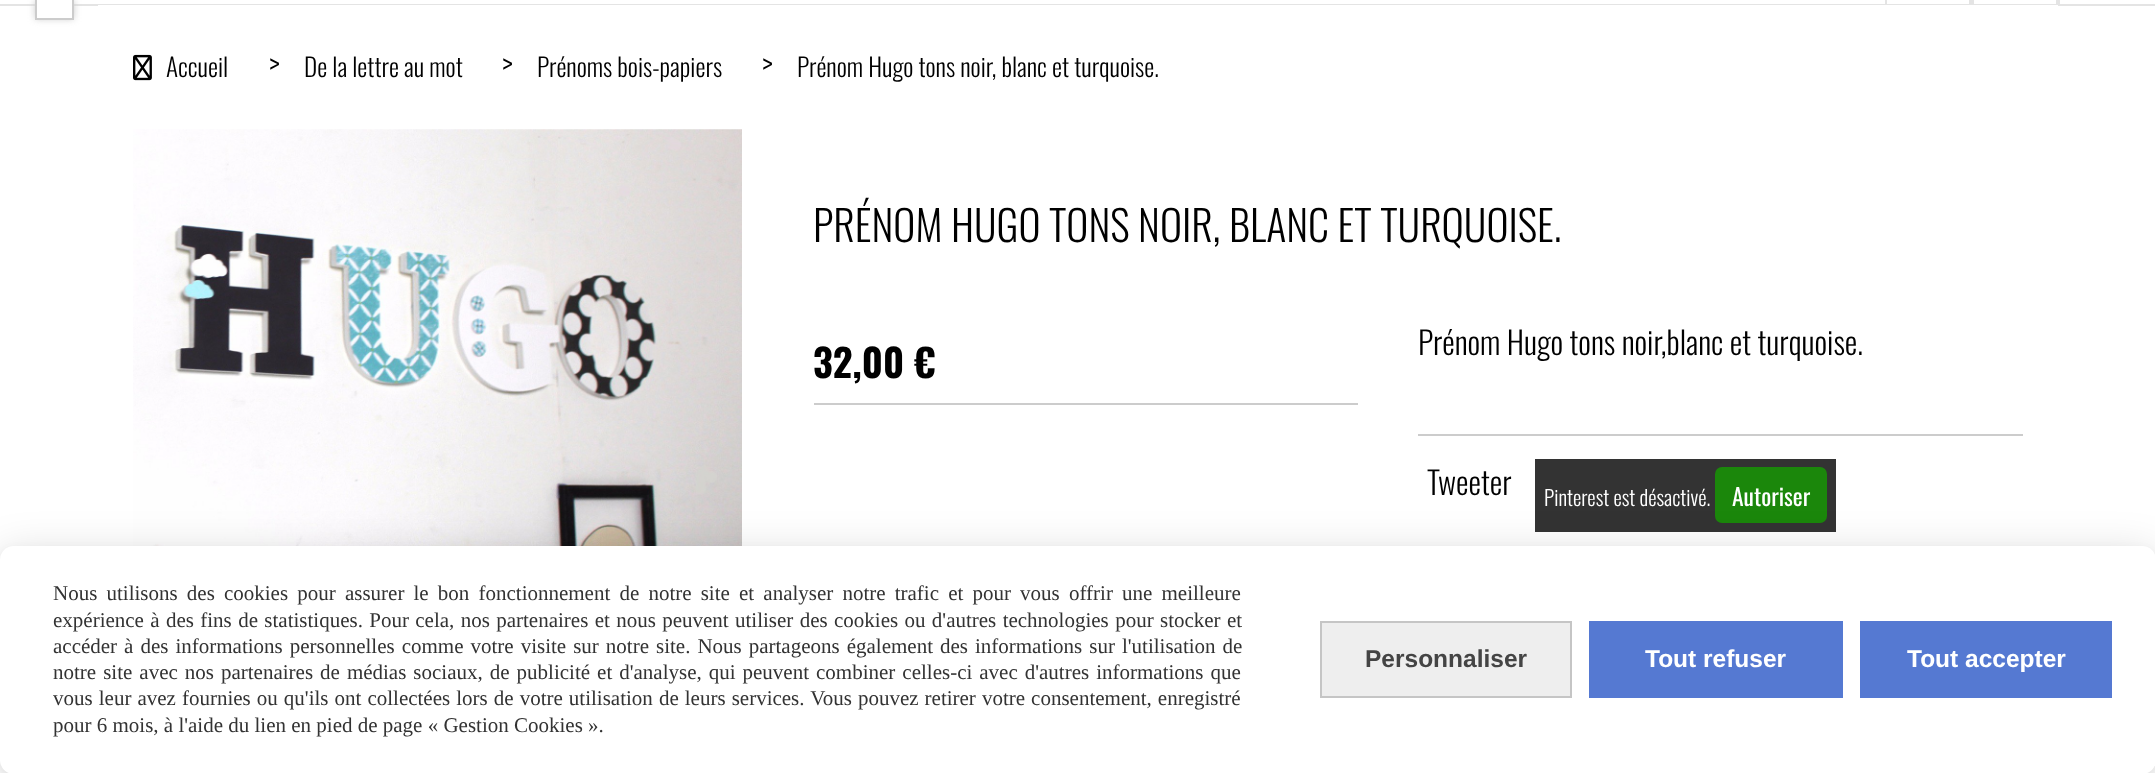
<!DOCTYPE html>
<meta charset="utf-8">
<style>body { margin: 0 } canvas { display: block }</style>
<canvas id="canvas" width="2155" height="773"></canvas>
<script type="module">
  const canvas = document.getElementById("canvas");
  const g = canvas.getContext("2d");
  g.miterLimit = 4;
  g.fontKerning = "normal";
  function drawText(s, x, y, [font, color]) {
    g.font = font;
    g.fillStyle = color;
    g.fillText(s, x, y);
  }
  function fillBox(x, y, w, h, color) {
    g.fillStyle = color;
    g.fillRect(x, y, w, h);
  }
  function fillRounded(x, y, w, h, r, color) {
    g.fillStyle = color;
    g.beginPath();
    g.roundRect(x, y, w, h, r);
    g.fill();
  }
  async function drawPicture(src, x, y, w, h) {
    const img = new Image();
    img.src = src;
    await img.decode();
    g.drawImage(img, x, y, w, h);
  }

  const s1 = ["300 25.25px Oswald", "#000000"];
  const s2 = ["300 31.5px Oswald", "#000000"];
  const s3 = ["300 42px Oswald", "#000000"];
  const s4 = ["bold 38.5px Oswald", "#000000"];
  const s5 = ["300 21px Oswald", "#FFFFFF"];
  const s6 = ["23.5px Oswald", "#FFFFFF"];
  const s7 = ["21px Liberation Serif", "#333333"];
  const s8 = ["bold 24.5px Liberation Sans", "#444444"];
  const s9 = ["bold 24.5px Liberation Sans", "#FFFFFF"];

  fillBox(0, 0, 2155, 773, "#FFFFFF");
  fillBox(0, 4, 2155, 2, "#E4E4E4");
  g.fillStyle = "#CCCCCC";
  g.filter = "blur(3.5px)";
  g.beginPath();
  g.rect(35, 0, 39, 19);
  g.fill();
  g.filter = "none";
  fillBox(37, 0, 35, 18, "#FFFFFF");
  fillBox(72, 0, 2, 19, "#CCCCCC");
  fillBox(35, 18, 39, 2, "#CCCCCC");
  fillBox(35, 0, 2, 19, "#CCCCCC");
  fillBox(1969, 0, 5, 4, "#E4E4E4");
  fillBox(1885, 0, 2, 4, "#E4E4E4");
  fillBox(2056, 0, 4, 4, "#E4E4E4");
  fillBox(98, 5, 1960, 1, "#FFFFFF");
  await drawPicture("pic1.png", 133, 54, 19, 27);
  drawText("Accueil", 166, 77, s1);
  drawText(">", 269, 77, s2);
  drawText("De la lettre au mot", 304, 77, s1);
  drawText(">", 502, 77, s2);
  drawText("Prénoms bois-papiers", 537, 77, s1);
  drawText(">", 762, 77, s2);
  drawText("Prénom Hugo tons noir, blanc et turquoise.", 797, 77, s1);
  await drawPicture("pic2.png", 133, 129, 609, 417);
  drawText("PRÉNOM HUGO TONS NOIR, BLANC ET TURQUOISE.", 813, 242, s3);
  fillBox(814, 403, 544, 2, "#CCCCCC");
  drawText("32,00 €", 813, 378, s4);
  drawText("Prénom Hugo tons noir,blanc et turquoise.", 1418, 355, s2);
  fillBox(1418, 434, 605, 2, "#CCCCCC");
  drawText("Tweeter", 1427, 495, s2);
  fillBox(1535, 459, 301, 73, "#333333");
  drawText("Pinterest est désactivé.", 1544, 506, s5);
  fillRounded(1715, 467, 112, 56, 7, "#1B870B");
  drawText("Autoriser", 1732, 506, s6);
  g.fillStyle = "rgba(0, 0, 0, 0.05)";
  g.filter = "blur(5px)";
  g.beginPath();
  g.roundRect(0, 550, 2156, 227, 14);
  g.fill();
  g.filter = "none";
  g.fillStyle = "rgba(0, 0, 0, 0.15)";
  g.filter = "blur(21px)";
  g.beginPath();
  g.roundRect(0, 553, 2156, 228, 14);
  g.fill();
  g.filter = "none";
  fillRounded(0, 546, 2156, 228, 14, "#FFFFFF");
  g.wordSpacing = "3.9px";
  drawText("Nous utilisons des cookies pour assurer le bon fonctionnement de notre site et analyser notre trafic et pour vous offrir une meilleure", 53, 600, s7);
  g.wordSpacing = "1.1px";
  drawText("expérience à des fins de statistiques. Pour cela, nos partenaires et nous peuvent utiliser des cookies ou d'autres technologies pour stocker et", 53, 627, s7);
  g.wordSpacing = "1.75px";
  drawText("accéder à des informations personnelles comme votre visite sur notre site. Nous partageons également des informations sur l'utilisation de", 53, 653, s7);
  drawText("notre site avec nos partenaires de médias sociaux, de publicité et d'analyse, qui peuvent combiner celles-ci avec d'autres informations que", 53, 679, s7);
  g.wordSpacing = "0.8px";
  drawText("vous leur avez fournies ou qu'ils ont collectées lors de votre utilisation de leurs services. Vous pouvez retirer votre consentement, enregistré", 53, 705, s7);
  g.wordSpacing = "0px";
  drawText("pour 6 mois, à l'aide du lien en pied de page « Gestion Cookies ».", 53, 732, s7);
  g.fillStyle = "#EEEEEE";
  g.beginPath();
  g.rect(1321, 622, 250, 75);
  g.fill();
  g.strokeStyle = "#C5C5C5";
  g.lineWidth = 2;
  g.stroke();
  drawText("Personnaliser", 1365, 667, s8);
  fillBox(1589, 621, 254, 77, "#5579D2");
  drawText("Tout refuser", 1645, 667, s9);
  fillBox(1860, 621, 252, 77, "#5579D2");
  drawText("Tout accepter", 1907, 667, s9);
</script>
